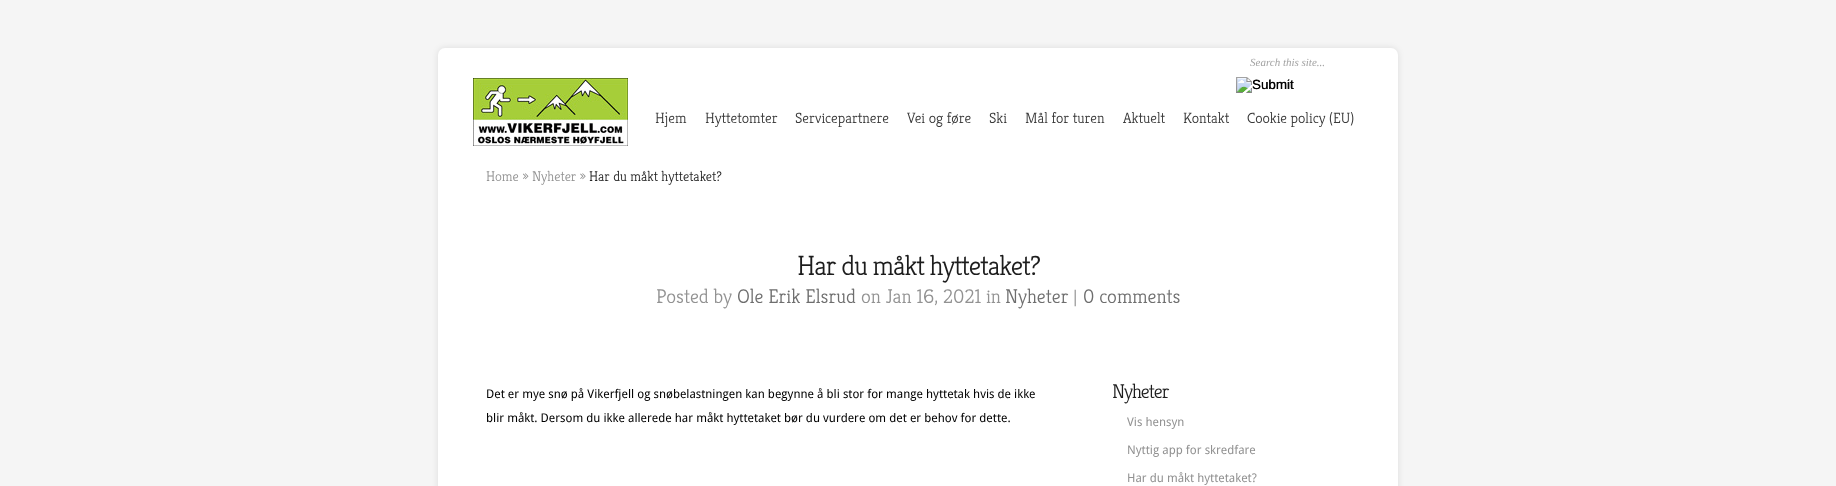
<!DOCTYPE html>
<meta charset="utf-8">
<style>body { margin: 0 } canvas { display: block }</style>
<canvas id="canvas" width="1836" height="486"></canvas>
<script type="module">
  const canvas = document.getElementById("canvas");
  const g = canvas.getContext("2d");
  g.miterLimit = 4;
  g.fontKerning = "normal";
  function drawText(s, x, y, [font, color]) {
    g.font = font;
    g.fillStyle = color;
    g.fillText(s, x, y);
  }
  function fillBox(x, y, w, h, color) {
    g.fillStyle = color;
    g.fillRect(x, y, w, h);
  }
  function fillRounded(x, y, w, h, r, color) {
    g.fillStyle = color;
    g.beginPath();
    g.roundRect(x, y, w, h, r);
    g.fill();
  }
  async function drawPicture(src, x, y, w, h) {
    const img = new Image();
    img.src = src;
    await img.decode();
    g.drawImage(img, x, y, w, h);
  }

  const s1 = ["italic 11px Liberation Serif", "#A3A3A3"];
  const s2 = ["13.5px Liberation Sans", "#000000"];
  const s3 = ["300 15px Kreon", "#393939"];
  const s4 = ["300 14px Kreon", "#929292"];
  const s5 = ["300 14px Kreon", "#1D1D1D"];
  const s6 = ["300 28px Kreon", "#1D1D1D"];
  const s7 = ["300 20px Kreon", "#929292"];
  const s8 = ["300 20px Kreon", "#6E6E6E"];
  const s9 = ["12px Droid Sans", "#000000"];
  const s10 = ["300 20px Kreon", "#1D1D1D"];
  const s11 = ["12px Droid Sans", "#929292"];

  fillBox(0, 0, 1836, 486, "#F5F5F5");
  g.fillStyle = "rgba(0, 0, 0, 0.1)";
  g.filter = "blur(3px)";
  g.beginPath();
  g.roundRect(438, 48, 960, 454, 7);
  g.fill();
  g.filter = "none";
  fillRounded(438, 48, 960, 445, 7, "#FFFFFF");
  drawText("Search this site...", 1250, 66, s1);
  await drawPicture("pic1.png", 1236, 77, 57, 16);
  drawText("Submit", 1252, 89, s2);
  await drawPicture("pic2.png", 473, 78, 155, 68);
  drawText("Hjem", 655, 123, s3);
  drawText("Hyttetomter", 705, 123, s3);
  drawText("Servicepartnere", 795, 123, s3);
  drawText("Vei og føre", 907, 123, s3);
  drawText("Ski", 989, 123, s3);
  drawText("Mål for turen", 1025, 123, s3);
  drawText("Aktuelt", 1123, 123, s3);
  drawText("Kontakt", 1183, 123, s3);
  drawText("Cookie policy (EU)", 1247, 123, s3);
  drawText("Home » Nyheter »", 486, 181, s4);
  drawText("Har du måkt hyttetaket?", 589, 181, s5);
  g.letterSpacing = "-1px";
  drawText("Har du måkt hyttetaket?", 797, 275, s6);
  g.letterSpacing = "0px";
  drawText("Posted by", 656, 303, s7);
  drawText("Ole Erik Elsrud", 737, 303, s8);
  drawText("on Jan 16, 2021 in", 861, 303, s7);
  drawText("Nyheter", 1005, 303, s8);
  drawText("|", 1073, 303, s7);
  drawText("0 comments", 1083, 303, s8);
  drawText("Det er mye snø på Vikerfjell og snøbelastningen kan begynne å bli stor for mange hyttetak hvis de ikke", 486, 398, s9);
  drawText("blir måkt. Dersom du ikke allerede har måkt hyttetaket bør du vurdere om det er behov for dette.", 486, 422, s9);
  g.letterSpacing = "-1px";
  drawText("Nyheter", 1112, 398, s10);
  g.letterSpacing = "0px";
  drawText("Vis hensyn", 1127, 426, s11);
  drawText("Nyttig app for skredfare", 1127, 454, s11);
  drawText("Har du måkt hyttetaket?", 1127, 482, s11);
</script>
